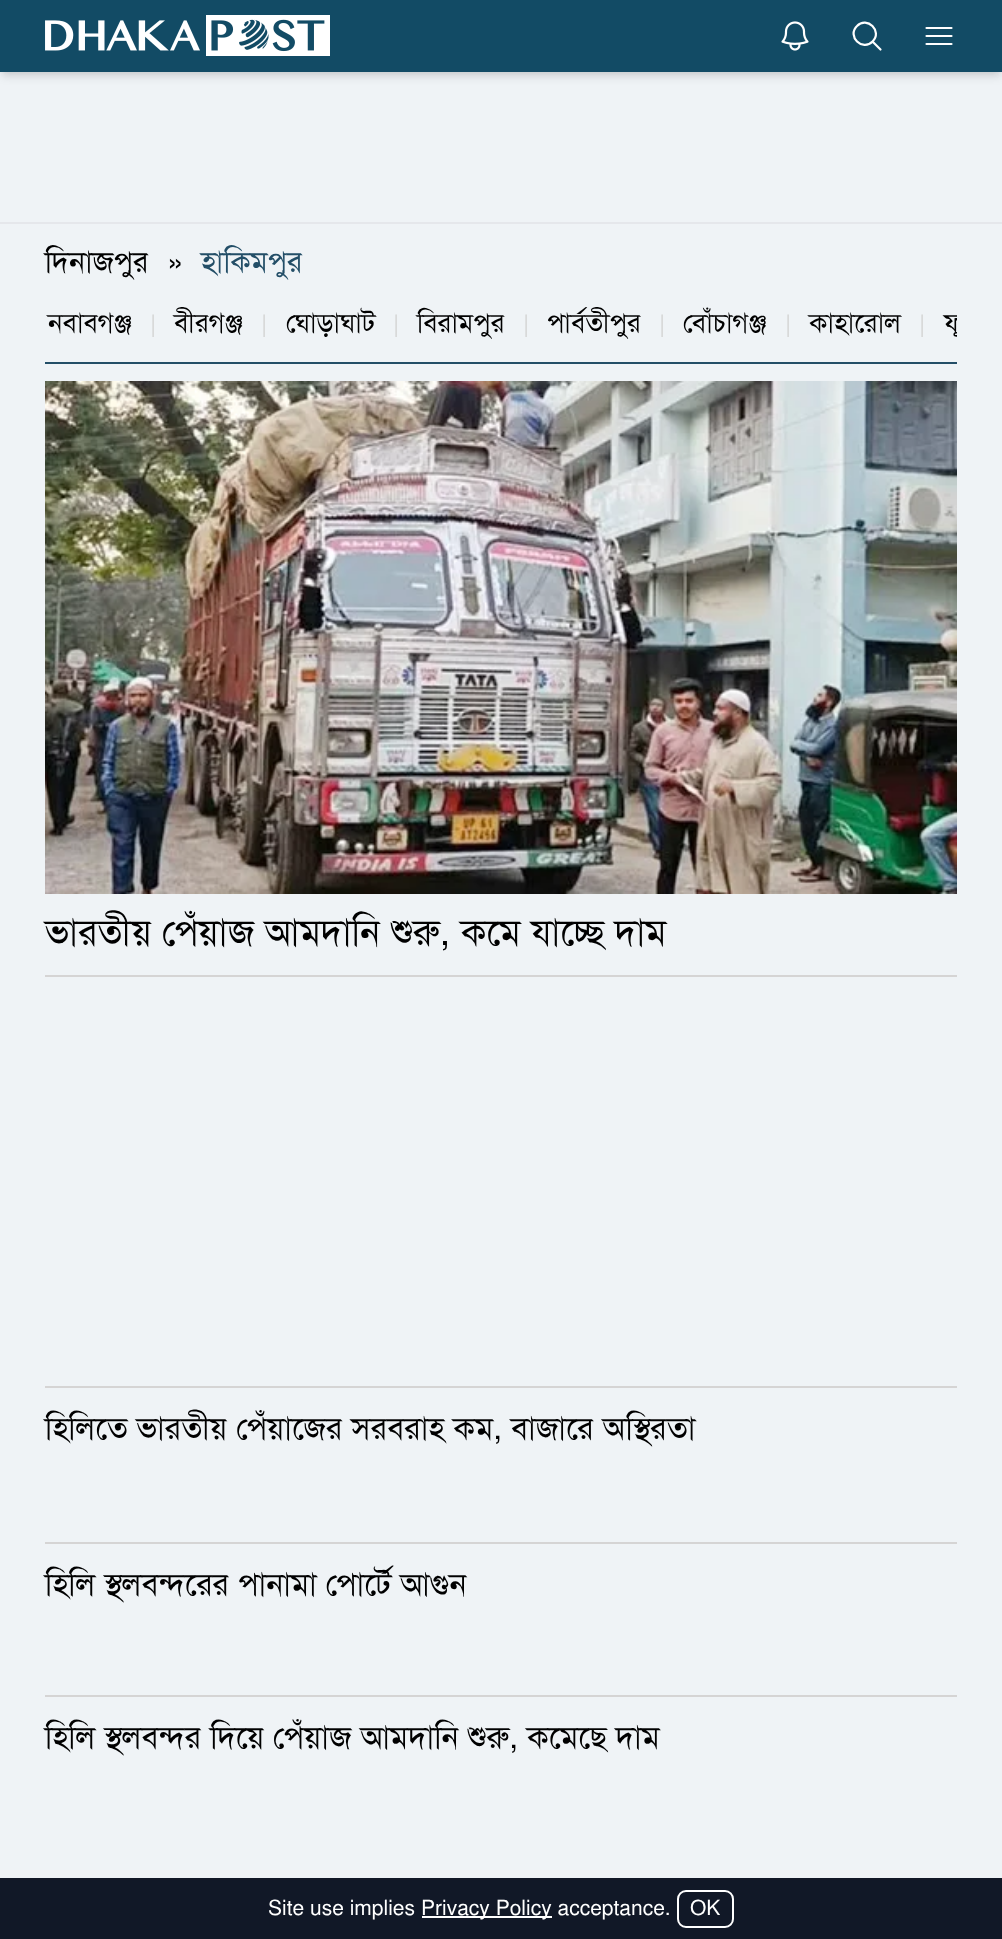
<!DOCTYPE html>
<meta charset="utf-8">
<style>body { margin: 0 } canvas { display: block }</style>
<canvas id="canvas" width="1002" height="1939"></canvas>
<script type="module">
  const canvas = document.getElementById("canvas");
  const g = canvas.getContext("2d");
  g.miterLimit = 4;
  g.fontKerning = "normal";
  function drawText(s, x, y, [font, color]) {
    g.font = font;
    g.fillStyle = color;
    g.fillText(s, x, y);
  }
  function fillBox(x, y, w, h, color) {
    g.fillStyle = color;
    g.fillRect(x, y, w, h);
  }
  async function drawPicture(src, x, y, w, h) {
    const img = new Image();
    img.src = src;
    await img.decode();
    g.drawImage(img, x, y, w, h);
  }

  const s1 = ["30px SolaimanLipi", "#000000"];
  const s2 = ["30px SolaimanLipi", "#234E67"];
  const s3 = ["27px SolaimanLipi", "#000000"];
  const s4 = ["24px SolaimanLipi", "#D5D4D4"];
  const s5 = ["37.5px SolaimanLipi", "#000000"];
  const s6 = ["31.9px SolaimanLipi", "#000000"];
  const s7 = ["21px SolaimanLipi", "#FFFFFF"];

  fillBox(0, 0, 1002, 1939, "#EFF3F6");
  g.fillStyle = "rgba(0, 0, 0, 0.1)";
  g.filter = "blur(3px)";
  g.beginPath();
  g.rect(3, 6, 996, 66);
  g.fill();
  g.filter = "none";
  g.filter = "blur(4.5px)";
  g.beginPath();
  g.rect(2, 8, 999, 69);
  g.fill();
  g.filter = "none";
  fillBox(0, 0, 1002, 72, "#124B65");
  await drawPicture("pic1.png", 45, 15, 285, 41);
  await drawPicture("pic2.png", 781, 21, 28, 30);
  g.beginPath();
  g.moveTo(880.5, 49.5);
  g.lineTo(872.5, 41.5);
  g.moveTo(872.5, 41.5);
  g.bezierCurveTo(883, 31.5, 867, 15.5, 857, 26);
  g.bezierCurveTo(846.5, 36, 862.5, 52, 872.5, 41.5);
  g.closePath();
  g.strokeStyle = "#FFFFFF";
  g.lineWidth = 2.2;
  g.lineCap = "round";
  g.lineJoin = "round";
  g.stroke();
  g.beginPath();
  g.moveTo(926.5, 28);
  g.lineTo(951.5, 28);
  g.moveTo(926.5, 36);
  g.lineTo(951.5, 36);
  g.moveTo(926.5, 44);
  g.lineTo(951.5, 44);
  g.stroke();
  fillBox(0, 222, 1002, 2, "#E5E7EB");
  fillBox(45, 362, 912, 2, "#234E67");
  drawText("দিনাজপুর", 45, 272, s1);
  drawText("»", 167, 272, s1);
  drawText("হাকিমপুর", 201, 272, s2);
  drawText("নবাবগঞ্জ", 48, 332, s3);
  drawText("|", 150, 332, s4);
  drawText("বীরগঞ্জ", 174, 332, s3);
  drawText("|", 261, 332, s4);
  drawText("ঘোড়াঘাট", 286, 332, s3);
  drawText("|", 393, 332, s4);
  drawText("বিরামপুর", 417, 332, s3);
  drawText("|", 523, 332, s4);
  drawText("পার্বতীপুর", 547, 332, s3);
  drawText("|", 659, 332, s4);
  drawText("বোঁচাগঞ্জ", 683, 332, s3);
  drawText("|", 785, 332, s4);
  drawText("কাহারোল", 809, 332, s3);
  drawText("|", 919, 332, s4);
  g.save();
  g.beginPath();
  g.rect(45, 302, 912, 60);
  g.clip();
  drawText("ফু", 944, 332, s3);
  g.restore();
  await drawPicture("pic3.png", 45, 381, 912, 513);
  drawText("ভারতীয় পেঁয়াজ আমদানি শুরু, কমে যাচ্ছে দাম", 45, 945, s5);
  fillBox(45, 975, 912, 2, "#D5D4D4");
  fillBox(45, 1386, 912, 2, "#D5D4D4");
  drawText("হিলিতে ভারতীয় পেঁয়াজের সরবরাহ কম, বাজারে অস্থিরতা", 45, 1439, s6);
  fillBox(45, 1542, 912, 2, "#D5D4D4");
  drawText("হিলি স্থলবন্দরের পানামা পোর্টে আগুন", 45, 1595, s6);
  fillBox(45, 1695, 912, 2, "#D5D4D4");
  drawText("হিলি স্থলবন্দর দিয়ে পেঁয়াজ আমদানি শুরু, কমেছে দাম", 45, 1748, s6);
  fillBox(0, 1878, 1002, 61, "#111827");
  drawText("Site use implies", 268, 1915, s7);
  fillBox(422, 1916, 130, 2, "#FFFFFF");
  drawText("Privacy Policy acceptance.", 421, 1915, s7);
  g.beginPath();
  g.roundRect(678, 1891, 55, 36, 8);
  g.lineWidth = 2;
  g.lineJoin = "miter";
  g.stroke();
  drawText("OK", 690, 1915, s7);
</script>
